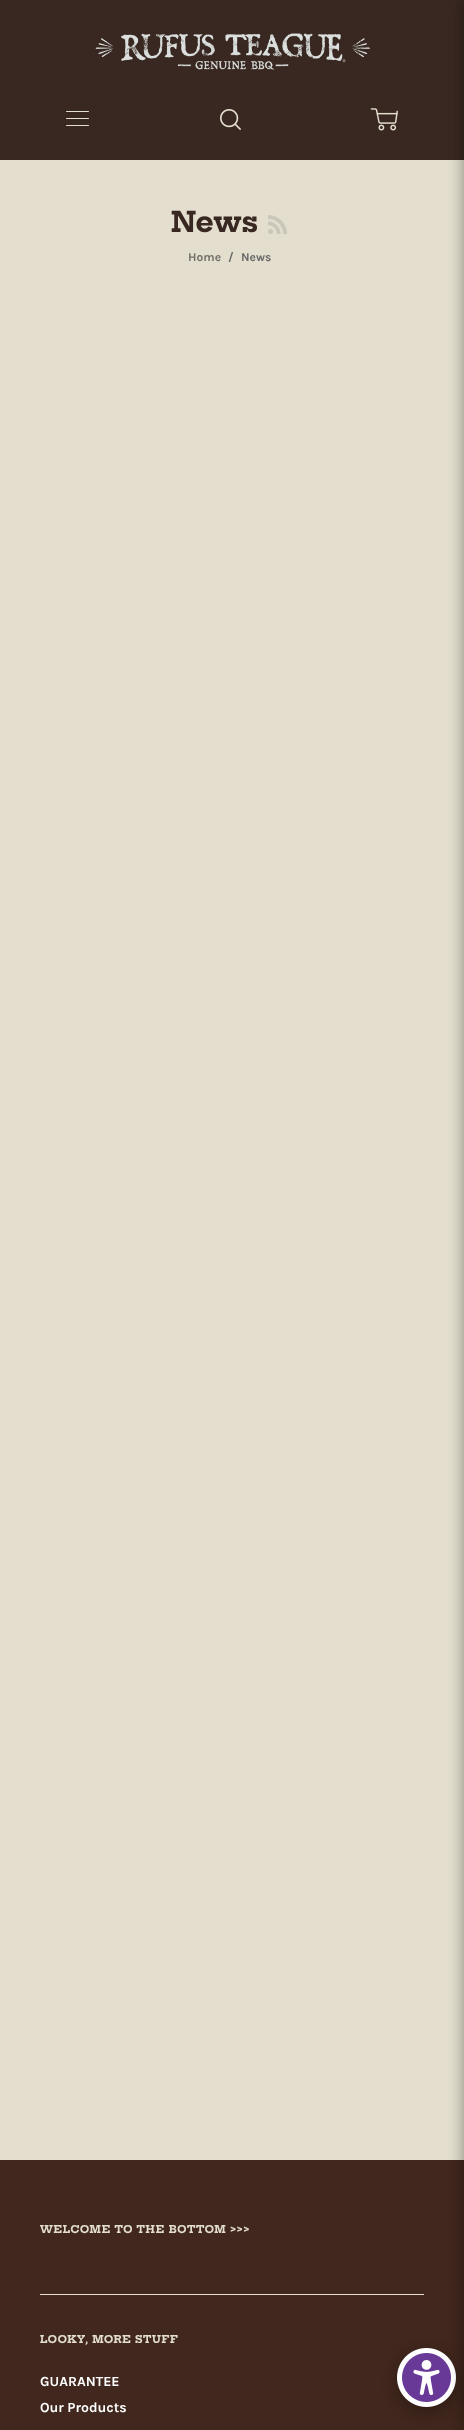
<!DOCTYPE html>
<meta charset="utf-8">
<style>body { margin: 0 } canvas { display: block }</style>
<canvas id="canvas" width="464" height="2430"></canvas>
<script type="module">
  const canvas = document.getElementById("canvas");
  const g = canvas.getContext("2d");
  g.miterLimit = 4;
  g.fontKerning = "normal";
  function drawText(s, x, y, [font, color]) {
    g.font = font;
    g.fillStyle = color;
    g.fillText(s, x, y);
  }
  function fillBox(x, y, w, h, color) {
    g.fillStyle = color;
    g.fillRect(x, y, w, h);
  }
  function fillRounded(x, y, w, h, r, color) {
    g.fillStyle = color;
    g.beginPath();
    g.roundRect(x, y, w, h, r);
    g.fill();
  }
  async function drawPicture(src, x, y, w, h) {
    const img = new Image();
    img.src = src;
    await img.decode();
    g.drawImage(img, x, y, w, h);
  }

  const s1 = ["bold 28px Hepta Slab", "#392821"];
  const s2 = ["bold 12px Karla", "#726F68"];
  const s3 = ["bold 12px Karla", "#696969"];
  const s4 = ["bold 10.5px Hepta Slab", "#E3DECE"];
  const s5 = ["bold 14px Karla", "#FFFFFF"];

  fillBox(0, 0, 464, 2430, "#E3DECE");
  fillBox(0, 0, 464, 80, "#392821");
  await drawPicture("pic1.png", 95, 33, 275, 37);
  g.fillStyle = "rgba(0, 0, 0, 0.3)";
  g.filter = "blur(0.5px)";
  g.beginPath();
  g.rect(1, 82, 462, 78);
  g.fill();
  g.filter = "none";
  fillBox(0, 80, 464, 80, "#392821");
  fillRounded(66, 111, 23, 1, 0.5, "#E3DECE");
  fillRounded(66, 118, 23, 1, 0.5, "#E3DECE");
  fillRounded(66, 125, 23, 1, 0.5, "#E3DECE");
  await drawPicture("pic2.png", 220, 109, 21, 21);
  await drawPicture("pic3.png", 370, 108, 28, 23);
  drawText("News", 171, 232, s1);
  await drawPicture("pic4.png", 268, 215, 19, 19);
  drawText("Home", 188, 261, s2);
  drawText("/", 228, 261, s3);
  drawText("News", 241, 261, s3);
  fillBox(0, 2160, 464, 270, "#41271D");
  g.letterSpacing = "0.65px";
  drawText("WELCOME TO THE BOTTOM >>>", 40, 2233, s4);
  fillBox(40, 2294, 384, 1, "#E3DECE");
  drawText("LOOKY, MORE STUFF", 40, 2343, s4);
  g.letterSpacing = "0px";
  drawText("GUARANTEE", 40, 2386, s5);
  drawText("Our Products", 40, 2412, s5);
  g.fillStyle = "rgba(0, 0, 0, 0.3)";
  g.filter = "blur(7.5px)";
  g.beginPath();
  g.roundRect(397, 2353, 59, 59, 29.5);
  g.fill();
  g.filter = "none";
  await drawPicture("pic5.png", 397, 2348, 59, 59);
  g.fillStyle = "rgba(0, 0, 0, 0.4)";
  g.filter = "blur(7.5px)";
  g.beginPath();
  g.roundRect(464, 0, 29, 2430, 6);
  g.fill();
  g.filter = "none";
</script>
